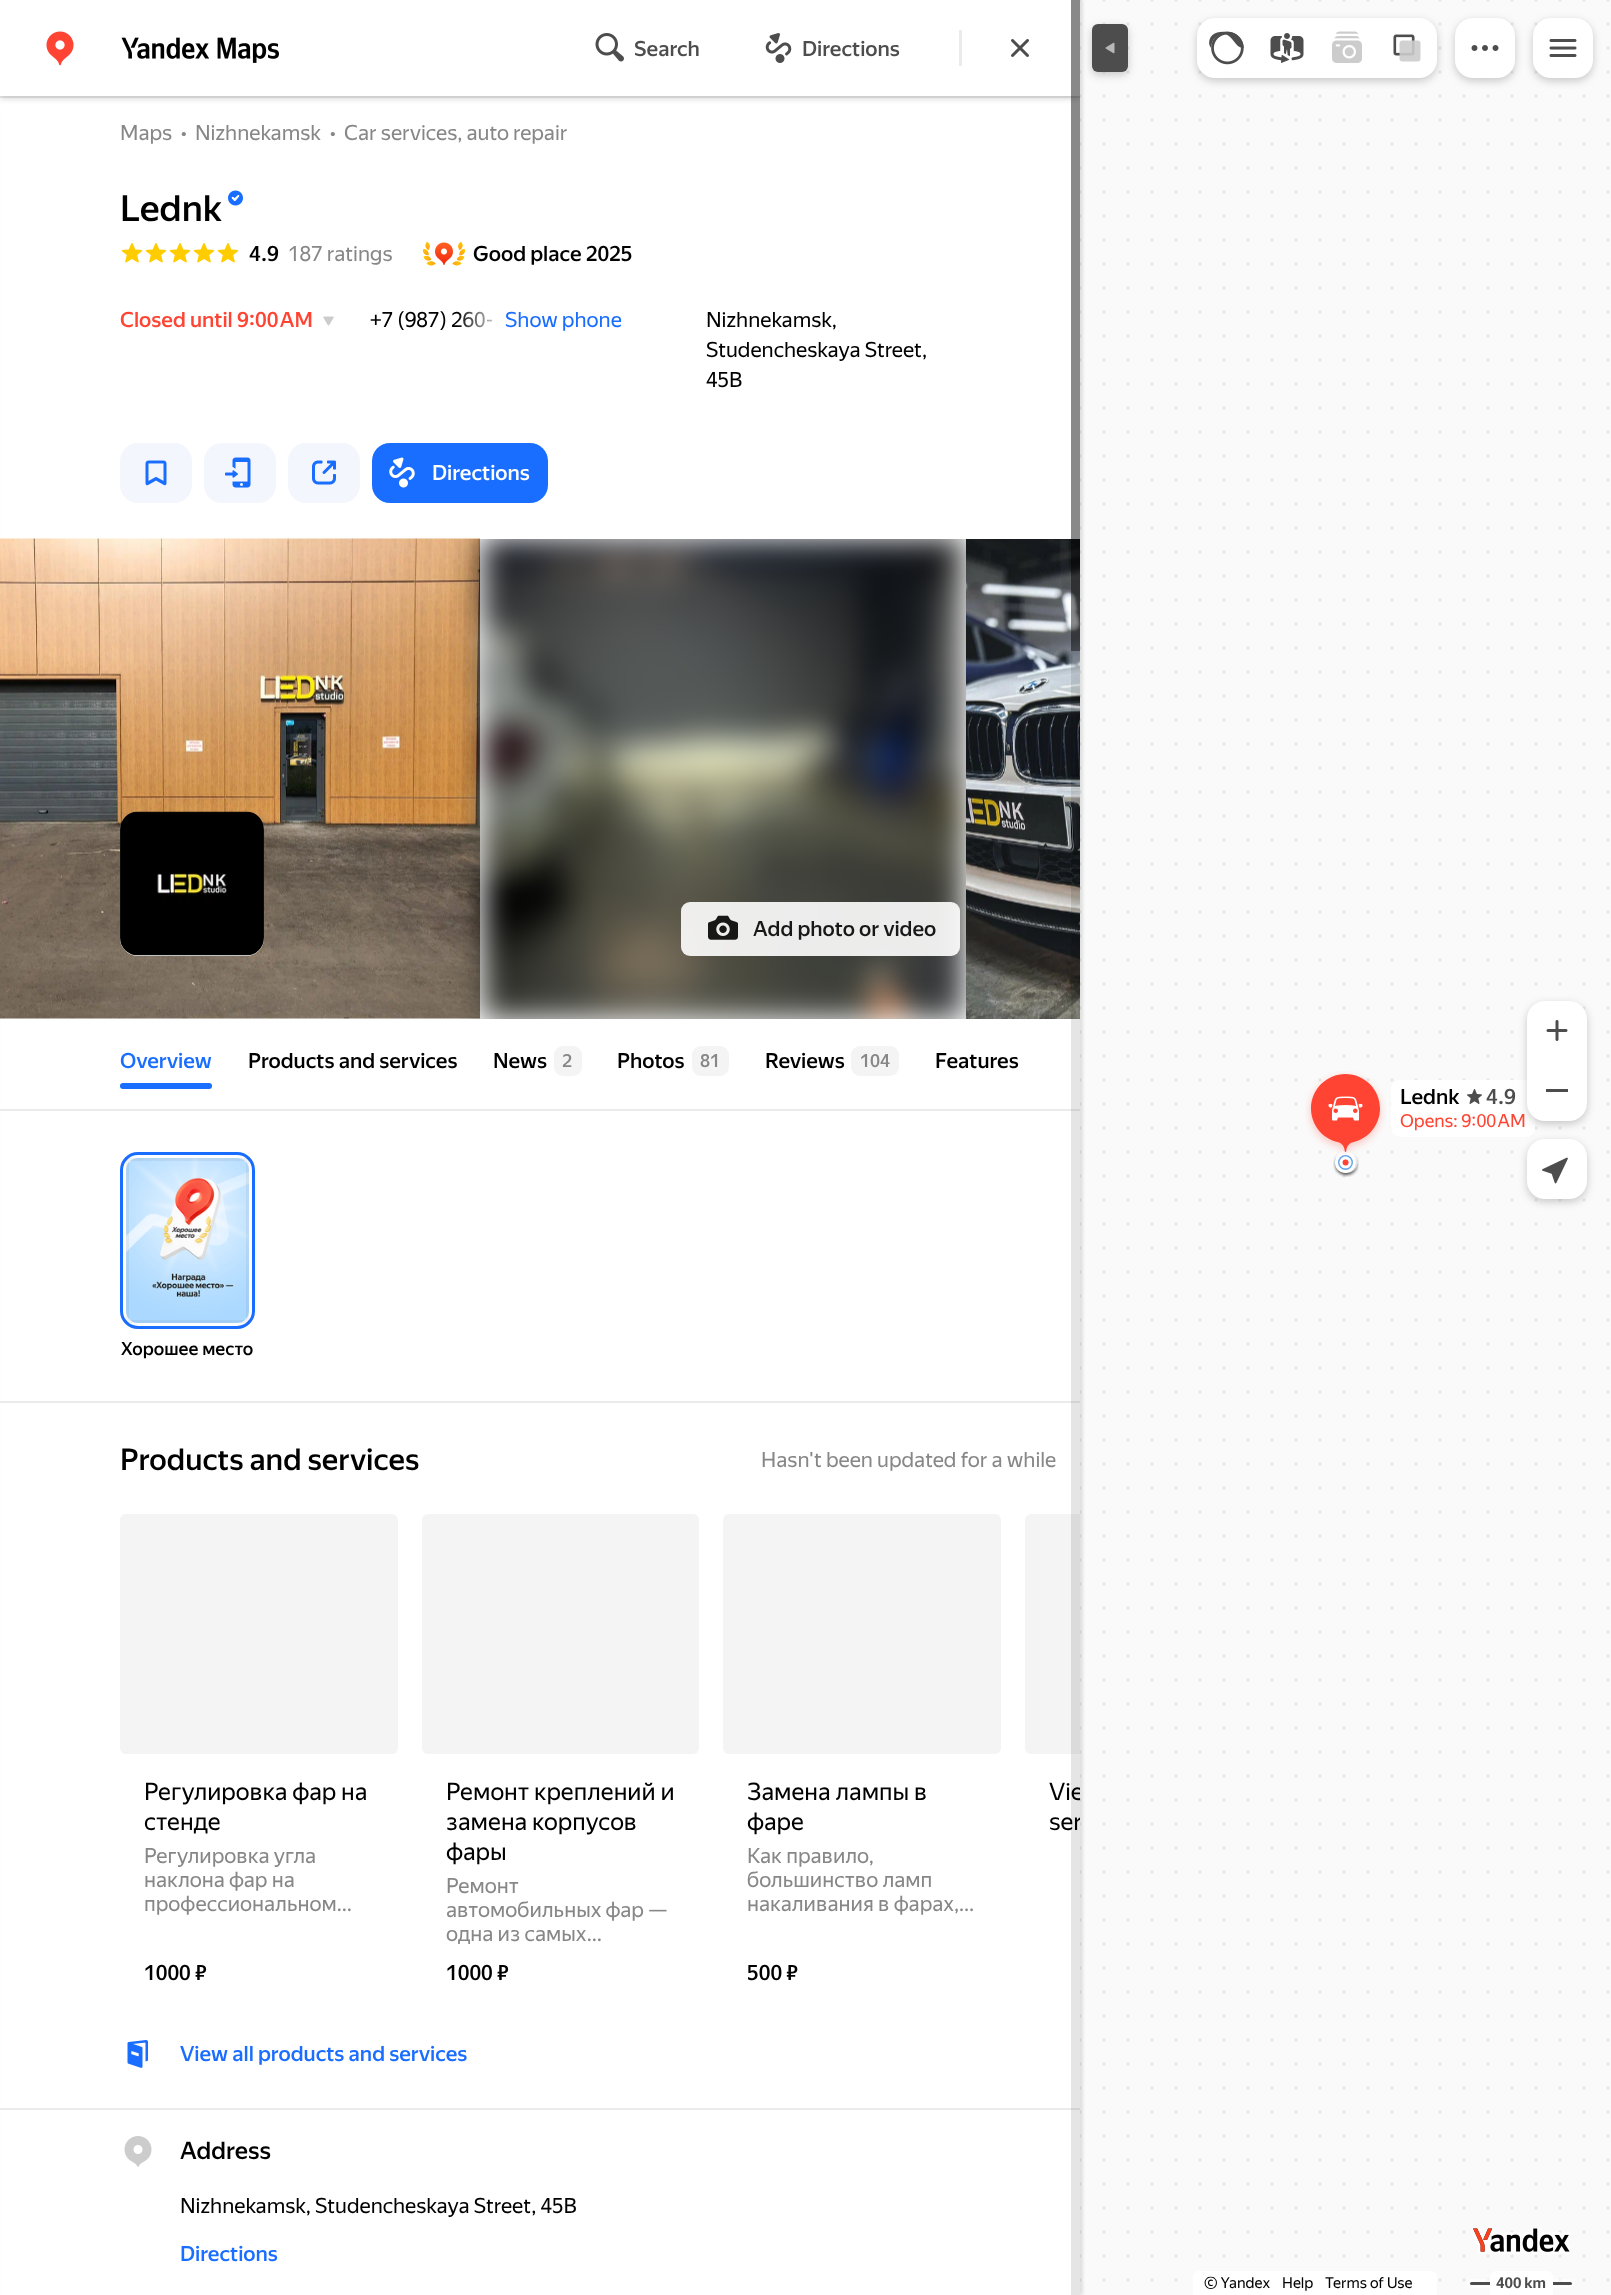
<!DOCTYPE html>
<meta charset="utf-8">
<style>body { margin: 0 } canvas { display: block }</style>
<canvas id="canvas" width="1611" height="2295"></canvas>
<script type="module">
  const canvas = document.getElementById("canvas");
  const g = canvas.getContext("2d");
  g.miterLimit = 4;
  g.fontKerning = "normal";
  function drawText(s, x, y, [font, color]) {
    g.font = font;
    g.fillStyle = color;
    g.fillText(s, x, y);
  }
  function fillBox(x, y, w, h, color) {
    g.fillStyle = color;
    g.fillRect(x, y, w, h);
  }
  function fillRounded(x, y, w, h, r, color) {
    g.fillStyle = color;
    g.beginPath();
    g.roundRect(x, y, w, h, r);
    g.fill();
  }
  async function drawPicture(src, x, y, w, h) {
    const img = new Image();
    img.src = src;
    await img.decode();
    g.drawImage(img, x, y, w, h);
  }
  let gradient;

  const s1 = ["500 21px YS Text", "#4D4D4D"];
  const s2 = ["21px YS Text", "#878787"];
  const s3 = ["500 36px YS Text", "#000000"];
  const s4 = ["500 21px YS Text", "#000000"];
  const s5 = ["500 21px YS Text", "#FF4433"];
  const s6 = ["21px YS Text", "#000000"];
  const s7 = ["21px YS Text", "#196DFF"];
  const s8 = ["500 21px YS Text", "#FFFFFF"];
  const s9 = ["500 21px YS Text", "#181818"];
  const s10 = ["500 21px YS Text", "#196DFF"];
  const s11 = ["500 18px YS Text", "#878787"];
  const s12 = ["500 18px YS Text", "#000000"];
  const s13 = ["500 30px YS Text", "#000000"];
  const s14 = ["24px YS Text", "#000000"];
  const s15 = ["500 24px YS Text", "#000000"];
  const s16 = ["15px YS Text", "#000000"];
  const s17 = ["bold 15px YS Text", "#4D4D4D"];
  const s18 = ["18px YS Text", "#FF4433"];

  fillBox(0, 0, 1611, 2295, "#FFFFFF");
  await drawPicture("pic1.png", 1080, 0, 531, 2295);
  g.fillStyle = "rgba(0, 0, 0, 0.1)";
  g.filter = "blur(1.5px)";
  g.beginPath();
  g.rect(3, 0, 1080, 2295);
  g.fill();
  g.filter = "none";
  fillBox(1, 98, 1079, 2197, "#FFFFFF");
  fillBox(0, 96, 1080, 2, "#EBEBEB");
  g.save();
  g.beginPath();
  g.rect(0, 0, 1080, 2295);
  g.clip();
  g.fillStyle = "rgba(0, 0, 0, 0.2)";
  g.filter = "blur(3px)";
  g.beginPath();
  g.rect(0, 92, 1080, 6);
  g.fill();
  g.filter = "none";
  g.restore();
  g.fillStyle = "rgba(0, 0, 0, 0.2)";
  g.filter = "blur(4.5px)";
  g.beginPath();
  g.roundRect(1092, 27, 36, 48, 6);
  g.fill();
  g.filter = "none";
  fillBox(0, 0, 1080, 96, "#FFFFFF");
  await drawPicture("pic17.png", 964, 539, 116, 480);
  fillBox(0, 1109, 1080, 2, "#EBEBEB");
  fillBox(0, 1401, 1080, 2, "#EBEBEB");
  g.fillStyle = "#F4F4F4";
  g.beginPath();
  g.roundRect(1025, 1514, 55, 240, [6, 0, 0, 6]);
  g.fill();
  fillBox(0, 2108, 1080, 2, "#EBEBEB");
  fillBox(1071, 0, 9, 2295, "rgba(0, 0, 0, 0.1)");
  fillBox(1071, 0, 9, 651, "rgba(0, 0, 0, 0.4)");
  await drawPicture("pic2.png", 46, 31, 28, 35);
  await drawPicture("pic3.png", 121, 37, 158, 26);
  await drawPicture("pic4.png", 595, 33, 29, 29);
  drawText("Search", 634, 56, s1);
  await drawPicture("pic5.png", 765, 33, 27, 30);
  drawText("Directions", 802, 56, s1);
  fillBox(959, 30, 3, 36, "#EBEBEB");
  await drawPicture("pic6.png", 1011, 39, 18, 18);
  drawText("Maps", 120, 140, s2);
  drawText("•", 181, 140, s2);
  drawText("Nizhnekamsk", 195, 140, s2);
  drawText("•", 330, 140, s2);
  drawText("Car services, auto repair", 344, 140, s2);
  drawText("Lednk", 120, 221, s3);
  await drawPicture("pic7.png", 228, 190, 15, 16);
  await drawPicture("pic8.png", 121, 243, 22, 20);
  await drawPicture("pic8.png", 145, 243, 22, 20);
  await drawPicture("pic8.png", 169, 243, 22, 20);
  await drawPicture("pic8.png", 193, 243, 22, 20);
  await drawPicture("pic8.png", 217, 243, 22, 20);
  drawText("4.9", 249, 261, s4);
  drawText("187 ratings", 288, 261, s2);
  await drawPicture("pic9.png", 423, 242, 42, 24);
  drawText("Good place 2025", 473, 261, s4);
  drawText("Closed until 9:00 AM", 120, 327, s5);
  await drawPicture("pic10.png", 323, 316, 11, 10);
  drawText("+7 (987) 260-", 370, 327, s6);
  gradient = g.createLinearGradient(456, 320, 504, 320);
  gradient.addColorStop(0, "rgba(255, 255, 255, 0)");
  gradient.addColorStop(1, "#FFFFFF");
  g.fillStyle = gradient;
  g.fillRect(457, 311, 35, 17);
  drawText("Show phone", 505, 327, s7);
  drawText("Nizhnekamsk,", 706, 327, s6);
  drawText("Studencheskaya Street,", 706, 357, s6);
  drawText("45В", 706, 387, s6);
  fillRounded(120, 443, 72, 60, 18, "#F3F6FC");
  await drawPicture("pic11.png", 145, 460, 22, 26);
  fillRounded(204, 443, 72, 60, 18, "#F3F6FC");
  await drawPicture("pic12.png", 225, 457, 26, 31);
  fillRounded(288, 443, 72, 60, 18, "#F3F6FC");
  await drawPicture("pic13.png", 312, 460, 24, 25);
  fillRounded(372, 443, 176, 60, 18, "#196DFF");
  await drawPicture("pic14.png", 389, 457, 26, 31);
  drawText("Directions", 432, 480, s8);
  await drawPicture("pic15.png", 0, 538, 482, 481);
  await drawPicture("pic16.png", 482, 539, 482, 480);
  fillRounded(120, 812, 144, 144, 18, "#FFFFFF");
  await drawPicture("pic18.png", 120, 811, 144, 145);
  fillRounded(681, 902, 279, 54, 9, "rgba(255, 255, 255, 0.9)");
  await drawPicture("pic19.png", 708, 915, 30, 25);
  drawText("Add photo or video", 753, 936, s9);
  drawText("Overview", 120, 1068, s10);
  drawText("Products and services", 248, 1068, s4);
  drawText("News", 493, 1068, s4);
  fillRounded(554, 1046, 28, 30, 9, "#F4F4F4");
  drawText("2", 562, 1067, s11);
  drawText("Photos", 617, 1068, s4);
  fillRounded(692, 1046, 37, 30, 9, "#F4F4F4");
  drawText("81", 700, 1067, s11);
  drawText("Reviews", 765, 1068, s4);
  fillRounded(851, 1046, 48, 30, 9, "#F4F4F4");
  drawText("104", 860, 1067, s11);
  drawText("Features", 935, 1068, s4);
  fillRounded(120, 1083, 92, 6, 3, "#196DFF");
  g.beginPath();
  g.roundRect(121.5, 1153.5, 132, 174, 16.5);
  g.strokeStyle = "#196DFF";
  g.lineWidth = 3;
  g.stroke();
  await drawPicture("pic20.png", 126, 1158, 123, 165);
  g.strokeStyle = "rgba(0, 0, 0, 0.05)";
  g.strokeRect(127.5, 1159.5, 120, 162);
  drawText("Хорошее место", 121, 1355, s12);
  drawText("Products and services", 120, 1470, s13);
  drawText("Hasn't been updated for a while", 761, 1467, s2);
  fillRounded(120, 1514, 278, 240, 6, "#F4F4F4");
  drawText("Регулировка фар на", 144, 1800, s14);
  drawText("стенде", 144, 1830, s14);
  drawText("Регулировка угла", 144, 1863, s2);
  drawText("наклона фар на", 144, 1887, s2);
  drawText("профессиональном…", 144, 1911, s2);
  drawText("1000 ₽", 144, 1980, s4);
  fillRounded(422, 1514, 277, 240, 6, "#F4F4F4");
  drawText("Ремонт креплений и", 446, 1800, s14);
  drawText("замена корпусов", 446, 1830, s14);
  drawText("фары", 446, 1860, s14);
  drawText("Ремонт", 446, 1893, s2);
  drawText("автомобильных фар —", 446, 1917, s2);
  drawText("одна из самых…", 446, 1941, s2);
  drawText("1000 ₽", 446, 1980, s4);
  fillRounded(723, 1514, 278, 240, 6, "#F4F4F4");
  drawText("Замена лампы в", 747, 1800, s14);
  drawText("фаре", 747, 1830, s14);
  drawText("Как правило,", 747, 1863, s2);
  drawText("большинство ламп", 747, 1887, s2);
  drawText("накаливания в фарах,…", 747, 1911, s2);
  drawText("500 ₽", 747, 1980, s4);
  g.save();
  g.beginPath();
  g.rect(1049, 1778, 31, 60);
  g.clip();
  drawText("Vie", 1049, 1800, s14);
  drawText("ser", 1049, 1830, s14);
  g.restore();
  await drawPicture("pic21.png", 127, 2040, 21, 28);
  drawText("View all products and services", 180, 2061, s10);
  await drawPicture("pic22.png", 124, 2136, 28, 31);
  drawText("Address", 180, 2159, s15);
  drawText("Nizhnekamsk, Studencheskaya Street, 45В", 180, 2213, s6);
  drawText("Directions", 180, 2261, s10);
  fillRounded(1092, 24, 36, 48, 6, "#4D4D4D");
  await drawPicture("pic23.png", 1105, 42, 10, 12);
  g.fillStyle = "rgba(0, 0, 0, 0.2)";
  g.filter = "blur(4.5px)";
  g.beginPath();
  g.roundRect(1197, 21, 240, 60, 18);
  g.fill();
  g.filter = "none";
  g.fillStyle = "#FFFFFF";
  g.beginPath();
  g.roundRect(1197, 18, 60, 60, [18, 0, 0, 18]);
  g.fill();
  await drawPicture("pic24.png", 1209, 31, 35, 34);
  fillBox(1257, 18, 120, 60, "#FFFFFF");
  await drawPicture("pic25.png", 1270, 33, 34, 30);
  g.beginPath();
  g.roundRect(1377, 18, 60, 60, [0, 18, 18, 0]);
  g.fill();
  await drawPicture("pic26.png", 1393, 34, 28, 28);
  await drawPicture("pic27.png", 1332, 31, 30, 32);
  g.fillStyle = "rgba(0, 0, 0, 0.2)";
  g.filter = "blur(4.5px)";
  g.beginPath();
  g.roundRect(1455, 21, 60, 60, 18);
  g.fill();
  g.filter = "none";
  fillRounded(1455, 18, 60, 60, 18, "#FFFFFF");
  await drawPicture("pic28.png", 1471, 45, 28, 6);
  g.fillStyle = "rgba(0, 0, 0, 0.2)";
  g.filter = "blur(4.5px)";
  g.beginPath();
  g.roundRect(1533, 21, 60, 60, 18);
  g.fill();
  g.filter = "none";
  fillRounded(1533, 18, 60, 60, 18, "#FFFFFF");
  await drawPicture("pic29.png", 1549, 39, 28, 18);
  fillRounded(1391, 1080, 144, 57, 9, "rgba(255, 255, 255, 0.9)");
  g.fillStyle = "rgba(0, 0, 0, 0.2)";
  g.filter = "blur(4.5px)";
  g.beginPath();
  g.roundRect(1527, 1004, 60, 120, 18);
  g.fill();
  g.filter = "none";
  g.fillStyle = "#FFFFFF";
  g.beginPath();
  g.roundRect(1527, 1001, 60, 60, [18, 18, 0, 0]);
  g.fill();
  await drawPicture("pic30.png", 1546, 1020, 22, 21);
  g.beginPath();
  g.roundRect(1527, 1061, 60, 60, [0, 0, 18, 18]);
  g.fill();
  fillBox(1546, 1089, 22, 3, "#4D4D4D");
  g.fillStyle = "rgba(0, 0, 0, 0.2)";
  g.filter = "blur(4.5px)";
  g.beginPath();
  g.roundRect(1527, 1142, 60, 60, 18);
  g.fill();
  g.filter = "none";
  fillRounded(1527, 1139, 60, 60, 18, "#FFFFFF");
  await drawPicture("pic31.png", 1542, 1157, 26, 27);
  await drawPicture("pic32.png", 1473, 2228, 97, 27);
  g.beginPath();
  g.roundRect(1193, 2271, 244, 24, [6, 6, 0, 0]);
  g.fill();
  drawText("© Yandex", 1204, 2288, s16);
  drawText("Help", 1282, 2288, s16);
  drawText("Terms of Use", 1325, 2288, s16);
  fillRounded(1467, 2279, 108, 9, 4.5, "rgba(255, 255, 255, 0.6)");
  fillRounded(1470, 2282, 102, 3, 1.5, "#4D4D4D");
  g.fillStyle = "#FFFFFF";
  g.beginPath();
  g.roundRect(1490, 2271, 63, 24, [6, 6, 0, 0]);
  g.fill();
  drawText("400 km", 1496, 2288, s17);
  await drawPicture("pic36.png", 1333, 1151, 25, 24);
  await drawPicture("pic37.png", 1335, 1153, 24, 24);
  await drawPicture("pic40.png", 1335, 1157, 24, 20);
  await drawPicture("pic38.png", 1333, 1155, 25, 22);
  await drawPicture("pic39.png", 1333, 1155, 25, 22);
  await drawPicture("pic33.png", 1305, 1071, 81, 98);
  await drawPicture("pic34.png", 1328, 1096, 35, 25);
  drawText("Lednk", 1400, 1104, s4);
  await drawPicture("pic35.png", 1467, 1089, 15, 15);
  drawText("4.9", 1486, 1104, s1);
  drawText("Opens: 9:00 AM", 1400, 1127, s18);
</script>
